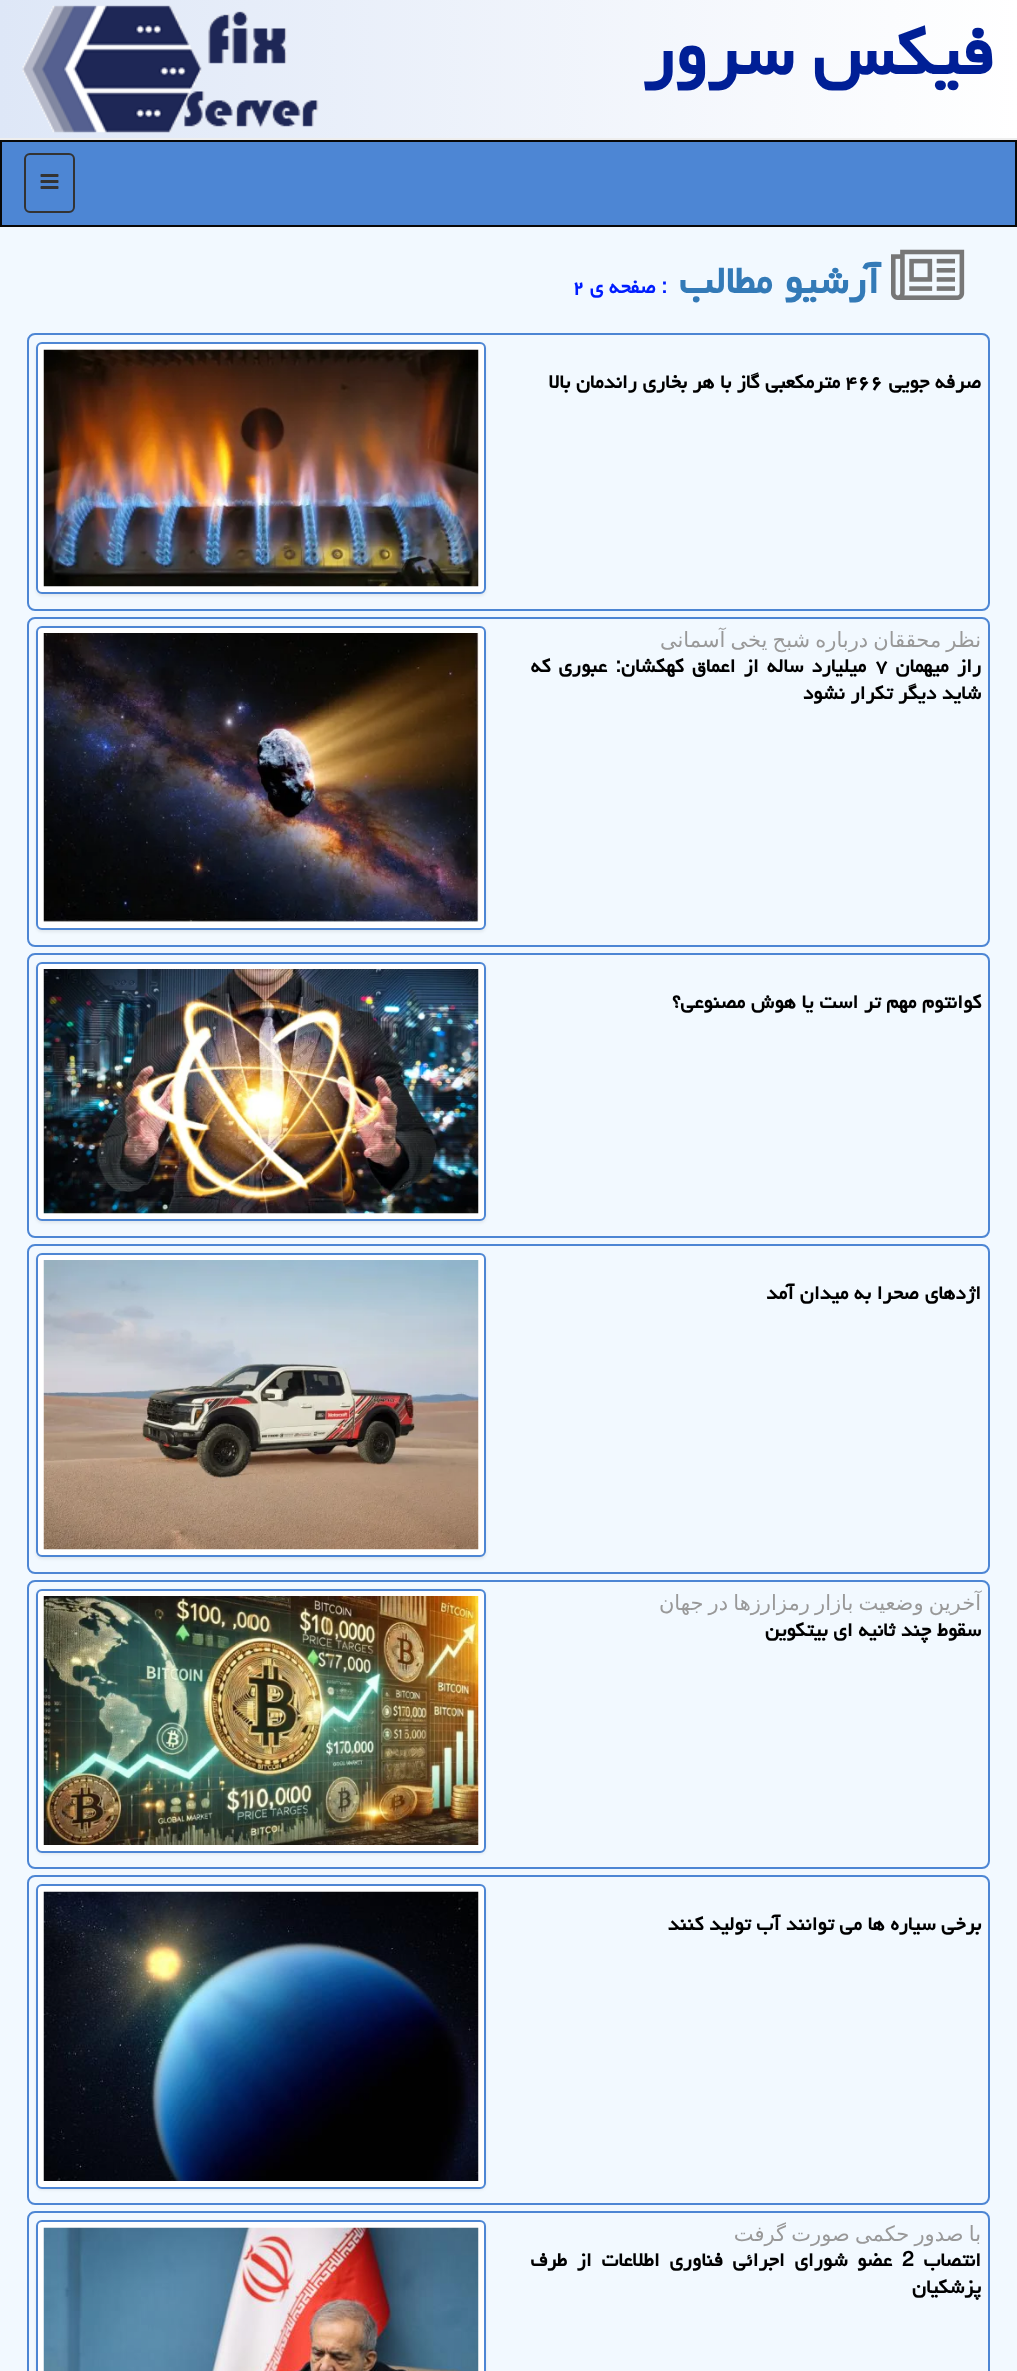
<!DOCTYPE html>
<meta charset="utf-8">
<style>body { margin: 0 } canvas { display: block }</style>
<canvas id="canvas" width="1017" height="2371"></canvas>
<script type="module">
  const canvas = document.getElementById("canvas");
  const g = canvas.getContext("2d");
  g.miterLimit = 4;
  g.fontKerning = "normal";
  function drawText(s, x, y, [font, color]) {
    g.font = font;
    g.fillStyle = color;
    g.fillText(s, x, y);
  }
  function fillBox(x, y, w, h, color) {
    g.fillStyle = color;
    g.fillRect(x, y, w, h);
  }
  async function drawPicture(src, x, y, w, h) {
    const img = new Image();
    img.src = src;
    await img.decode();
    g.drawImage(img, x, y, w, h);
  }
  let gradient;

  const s1 = ["bold 84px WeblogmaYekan", "#001F96"];
  const s2 = ["bold 48px WeblogmaYekan", "#337AB7"];
  const s3 = ["bold 24px WeblogmaYekan", "#001DFF"];
  const s4 = ["bold 24px WeblogmaYekan", "#000000"];
  const s5 = ["21px DejaVu Sans", "#999999"];

  fillBox(0, 0, 1017, 2371, "#F2F9FF");
  gradient = g.createLinearGradient(0, 69, 1017, 69);
  gradient.addColorStop(0, "#DEE7F7");
  gradient.addColorStop(1, "#FFFFFF");
  g.fillStyle = gradient;
  g.fillRect(0, 0, 1017, 138);
  fillBox(0, 138, 1017, 2, "#EEEEEE");
  g.direction = "rtl";
  drawText("فیكس سرور", 994, 74, s1);
  await drawPicture("pic1.png", 22, 5, 297, 128);
  g.fillStyle = "#4D86D4";
  g.beginPath();
  g.rect(1, 141, 1015, 85);
  g.fill();
  g.strokeStyle = "#080808";
  g.lineWidth = 2;
  g.stroke();
  g.beginPath();
  g.roundRect(25, 154, 49, 58, 5);
  g.strokeStyle = "#333333";
  g.stroke();
  await drawPicture("pic2.png", 40, 174, 19, 15);
  await drawPicture("pic3.png", 891, 249, 74, 51);
  drawText("آرشیو مطالب", 880, 293, s2);
  drawText(": صفحه ی", 667, 293, s3);
  g.direction = "ltr";
  drawText("۲", 572, 293, s3);
  g.beginPath();
  g.roundRect(28, 334, 961, 276, 7);
  g.strokeStyle = "#4D86D4";
  g.stroke();
  g.direction = "rtl";
  drawText("صرفه جویی", 981, 388, s4);
  g.direction = "ltr";
  drawText("۴۶۶", 845, 388, s4);
  g.direction = "rtl";
  drawText("مترمکعبی گاز با هر بخاری راندمان بالا", 840, 388, s4);
  g.fillStyle = "rgba(0, 0, 0, 0.07)";
  g.filter = "blur(1.5px)";
  g.beginPath();
  g.roundRect(36, 344, 450, 252, 6);
  g.fill();
  g.filter = "none";
  g.fillStyle = "#FFFFFF";
  g.beginPath();
  g.roundRect(37, 343, 448, 250, 5);
  g.fill();
  g.stroke();
  await drawPicture("pic4.png", 43, 349, 436, 238);
  g.beginPath();
  g.roundRect(28, 618, 961, 328, 7);
  g.stroke();
  g.wordSpacing = "-1.5px";
  drawText("نظر محققان درباره شبح یخی آسمانی", 981, 647, s5);
  g.wordSpacing = "2.5px";
  drawText("راز میهمان", 981, 672, s4);
  g.wordSpacing = "0px";
  g.direction = "ltr";
  drawText("۷", 875, 672, s4);
  g.wordSpacing = "2.5px";
  g.direction = "rtl";
  drawText("میلیارد ساله از اعماق کهکشان: عبوری که", 866, 672, s4);
  g.wordSpacing = "0px";
  drawText("شاید دیگر تکرار نشود", 981, 699, s4);
  g.fillStyle = "rgba(0, 0, 0, 0.07)";
  g.filter = "blur(1.5px)";
  g.beginPath();
  g.roundRect(36, 627, 450, 305, 6);
  g.fill();
  g.filter = "none";
  g.fillStyle = "#FFFFFF";
  g.beginPath();
  g.roundRect(37, 627, 448, 302, 5);
  g.fill();
  g.stroke();
  await drawPicture("pic5.png", 43, 633, 436, 289);
  g.beginPath();
  g.roundRect(28, 954, 961, 283, 7);
  g.stroke();
  drawText("کوانتوم مهم تر است یا هوش مصنوعی؟", 981, 1008, s4);
  g.fillStyle = "rgba(0, 0, 0, 0.07)";
  g.filter = "blur(1.5px)";
  g.beginPath();
  g.roundRect(36, 963, 450, 260, 6);
  g.fill();
  g.filter = "none";
  g.fillStyle = "#FFFFFF";
  g.beginPath();
  g.roundRect(37, 963, 448, 257, 5);
  g.fill();
  g.stroke();
  await drawPicture("pic6.png", 43, 969, 436, 245);
  g.beginPath();
  g.roundRect(28, 1245, 961, 328, 7);
  g.stroke();
  drawText("اژدهای صحرا به میدان آمد", 981, 1299, s4);
  g.fillStyle = "rgba(0, 0, 0, 0.07)";
  g.filter = "blur(1.5px)";
  g.beginPath();
  g.roundRect(36, 1254, 450, 305, 6);
  g.fill();
  g.filter = "none";
  g.fillStyle = "#FFFFFF";
  g.beginPath();
  g.roundRect(37, 1254, 448, 302, 5);
  g.fill();
  g.stroke();
  await drawPicture("pic7.png", 43, 1260, 436, 290);
  g.beginPath();
  g.roundRect(28, 1581, 961, 287, 7);
  g.stroke();
  g.wordSpacing = "-1.5px";
  drawText("آخرین وضعیت بازار رمزارزها در جهان", 981, 1610, s5);
  g.wordSpacing = "0px";
  drawText("سقوط چند ثانیه ای بیتکوین", 981, 1636, s4);
  g.fillStyle = "rgba(0, 0, 0, 0.07)";
  g.filter = "blur(1.5px)";
  g.beginPath();
  g.roundRect(36, 1590, 450, 264, 6);
  g.fill();
  g.filter = "none";
  g.fillStyle = "#FFFFFF";
  g.beginPath();
  g.roundRect(37, 1590, 448, 262, 5);
  g.fill();
  g.stroke();
  await drawPicture("pic8.png", 43, 1596, 436, 249);
  g.beginPath();
  g.roundRect(28, 1876, 961, 328, 7);
  g.stroke();
  drawText("برخی سیاره ها می توانند آب تولید کنند", 981, 1930, s4);
  g.fillStyle = "rgba(0, 0, 0, 0.07)";
  g.filter = "blur(1.5px)";
  g.beginPath();
  g.roundRect(36, 1886, 450, 304, 6);
  g.fill();
  g.filter = "none";
  g.fillStyle = "#FFFFFF";
  g.beginPath();
  g.roundRect(37, 1885, 448, 303, 5);
  g.fill();
  g.stroke();
  await drawPicture("pic9.png", 43, 1891, 436, 290);
  g.beginPath();
  g.roundRect(28, 2212, 961, 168, 7);
  g.stroke();
  g.wordSpacing = "-1.5px";
  drawText("با صدور حكمی صورت گرفت", 981, 2241, s5);
  g.wordSpacing = "0px";
  drawText("انتصاب", 981, 2266, s4);
  g.direction = "ltr";
  drawText("2", 902, 2266, s4);
  g.wordSpacing = "4px";
  g.direction = "rtl";
  drawText("عضو شورای اجرائی فناوری اطلاعات از طرف", 892, 2266, s4);
  g.wordSpacing = "0px";
  drawText("پزشکیان", 981, 2293, s4);
  g.fillStyle = "rgba(0, 0, 0, 0.07)";
  g.filter = "blur(1.5px)";
  g.beginPath();
  g.roundRect(36, 2222, 450, 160, 6);
  g.fill();
  g.filter = "none";
  g.fillStyle = "#FFFFFF";
  g.beginPath();
  g.roundRect(37, 2221, 448, 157, 5);
  g.fill();
  g.stroke();
  await drawPicture("pic10.png", 43, 2227, 436, 144);
</script>
